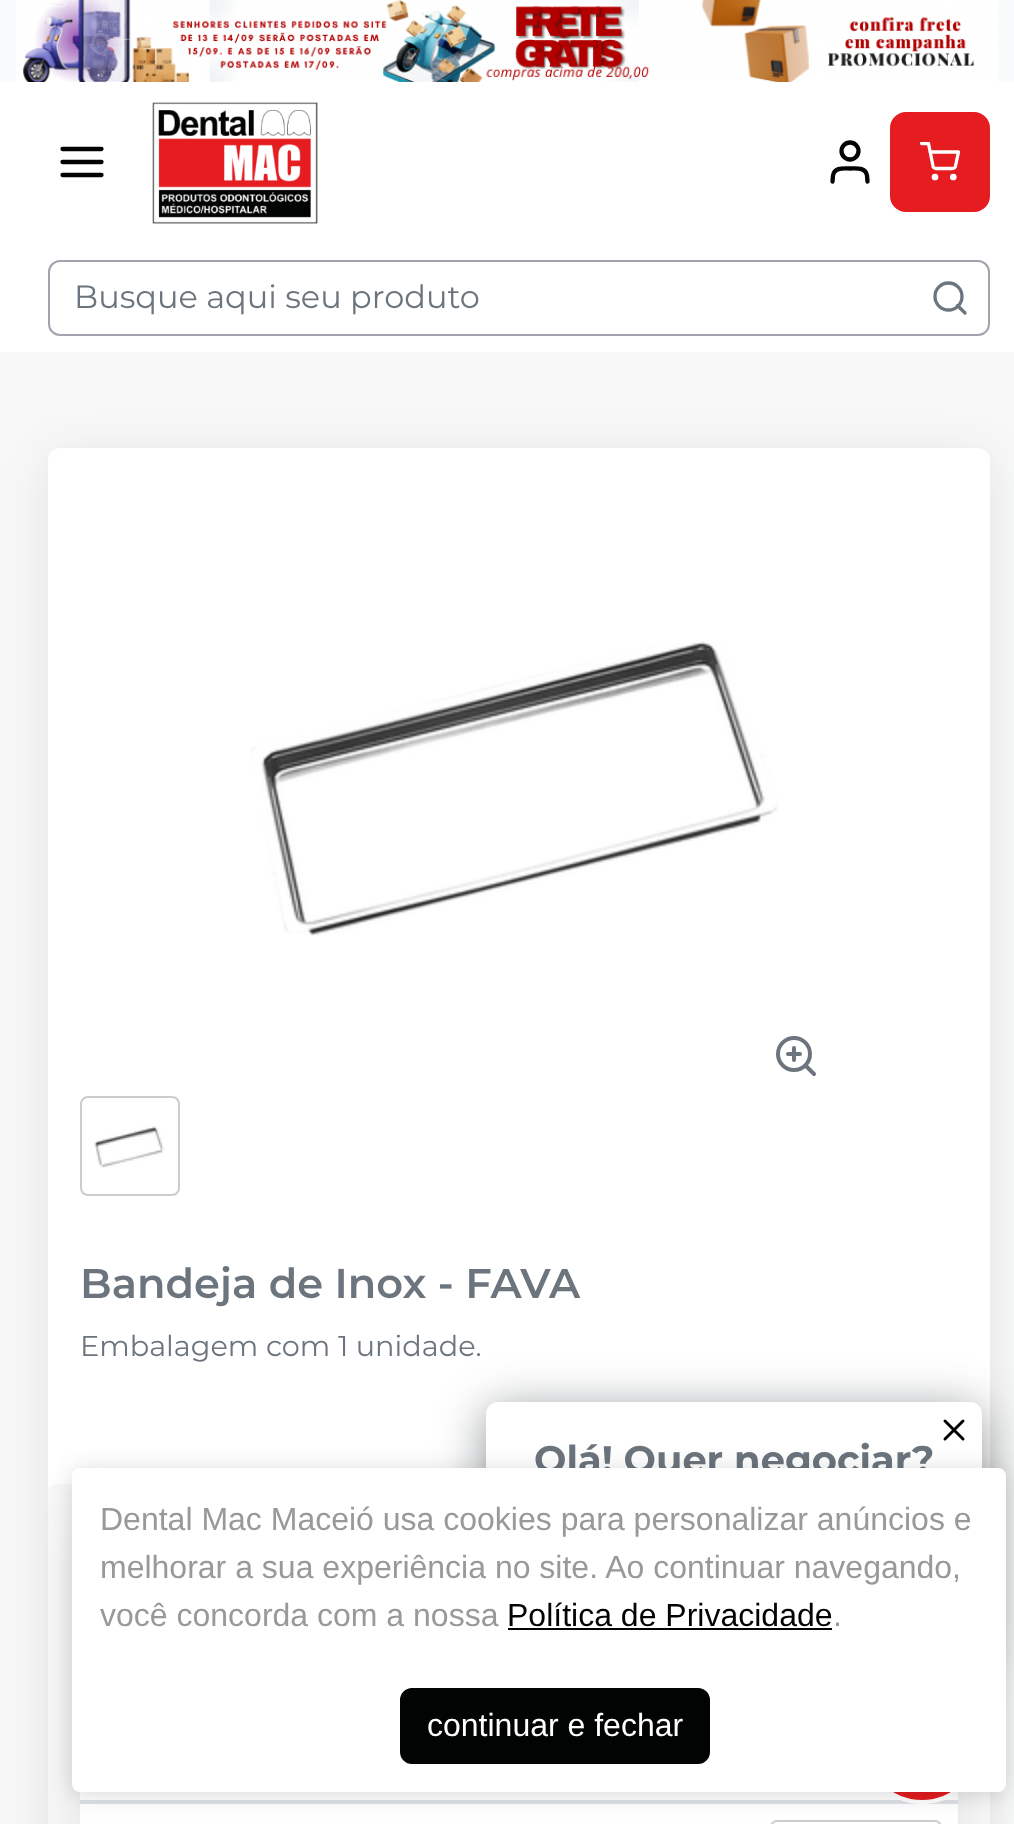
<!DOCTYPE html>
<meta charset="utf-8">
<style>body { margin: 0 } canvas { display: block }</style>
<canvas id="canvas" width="1014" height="1824"></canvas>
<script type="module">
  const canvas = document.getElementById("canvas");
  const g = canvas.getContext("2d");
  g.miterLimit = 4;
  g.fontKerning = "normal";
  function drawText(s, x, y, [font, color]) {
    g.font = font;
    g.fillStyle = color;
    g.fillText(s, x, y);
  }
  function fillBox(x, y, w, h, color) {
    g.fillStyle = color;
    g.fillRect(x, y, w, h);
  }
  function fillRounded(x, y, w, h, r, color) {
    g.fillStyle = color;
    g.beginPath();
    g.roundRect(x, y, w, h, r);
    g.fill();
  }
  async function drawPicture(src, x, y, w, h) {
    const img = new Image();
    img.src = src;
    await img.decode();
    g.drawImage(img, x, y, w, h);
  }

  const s1 = ["32px Montserrat", "#6C757D"];
  const s2 = ["600 41.6px Montserrat", "#6C757D"];
  const s3 = ["28.75px Montserrat", "#6C757D"];
  const s4 = ["bold 38.4px Montserrat", "#6C757D"];
  const s5 = ["32px Liberation Sans", "#999999"];
  const s6 = ["32px Liberation Sans", "#020303"];
  const s7 = ["32px Liberation Sans", "#FFFFFF"];

  fillBox(0, 0, 1014, 1824, "#F8F8F8");
  fillBox(0, 82, 1014, 270, "#FFFFFF");
  fillBox(0, 0, 1014, 82, "#F8FBFC");
  await drawPicture("pic1.png", 16, 0, 982, 82);
  g.beginPath();
  g.moveTo(62.5, 162);
  g.lineTo(101.5, 162);
  g.moveTo(62.5, 149);
  g.lineTo(101.5, 149);
  g.moveTo(62.5, 175);
  g.lineTo(101.5, 175);
  g.strokeStyle = "#020303";
  g.lineWidth = 4.3;
  g.lineCap = "round";
  g.lineJoin = "round";
  g.stroke();
  await drawPicture("pic2.png", 152, 102, 166, 122);
  g.beginPath();
  g.moveTo(867.5, 181.5);
  g.lineTo(867, 175.5);
  g.bezierCurveTo(865.5, 167, 856.5, 168.5, 850, 168.5);
  g.bezierCurveTo(843.5, 168.5, 834.5, 167, 833, 175.5);
  g.lineTo(832.5, 181.5);
  g.stroke();
  g.beginPath();
  g.arc(850, 151, 8.5, 0, Math.PI * 2);
  g.stroke();
  g.fillStyle = "#E51C20";
  g.beginPath();
  g.roundRect(891, 113, 98, 98, 15);
  g.fill();
  g.strokeStyle = "#E51C20";
  g.lineWidth = 2;
  g.lineJoin = "miter";
  g.stroke();
  g.beginPath();
  g.arc(935, 177, 1.7, 0, Math.PI * 2);
  g.strokeStyle = "#FFFFFF";
  g.lineWidth = 3.3;
  g.stroke();
  g.beginPath();
  g.arc(953.3, 177, 1.7, 0, Math.PI * 2);
  g.stroke();
  g.save();
  g.beginPath();
  g.rect(920, 142, 40, 40);
  g.clip();
  g.beginPath();
  g.moveTo(921.5, 143.5);
  g.lineTo(928.5, 143.5);
  g.lineTo(933, 166);
  g.bezierCurveTo(933, 167.5, 934.5, 168.5, 936, 168.5);
  g.lineTo(952.5, 168.5);
  g.bezierCurveTo(954, 168.5, 955.5, 167.5, 955.5, 166);
  g.lineTo(958.5, 152);
  g.lineTo(930, 152);
  g.lineJoin = "round";
  g.stroke();
  g.restore();
  g.beginPath();
  g.roundRect(49, 261, 940, 74, 11);
  g.strokeStyle = "#A4A2AC";
  g.lineWidth = 2;
  g.stroke();
  drawText("Busque aqui seu produto", 74, 308, s1);
  g.beginPath();
  g.arc(948.5, 296.5, 13.5, 0, Math.PI * 2);
  g.strokeStyle = "#6C757D";
  g.lineWidth = 3.3;
  g.stroke();
  g.beginPath();
  g.moveTo(965, 313);
  g.lineTo(957.5, 305.5);
  g.lineJoin = "round";
  g.stroke();
  g.fillStyle = "rgba(34, 41, 47, 0.1)";
  g.filter = "blur(24px)";
  g.beginPath();
  g.roundRect(48, 456, 942, 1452, 12);
  g.fill();
  g.filter = "none";
  fillRounded(48, 448, 942, 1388, 12, "#FFFFFF");
  await drawPicture("pic3.png", 250, 641, 528, 295);
  g.beginPath();
  g.arc(794, 1054, 16, 0, Math.PI * 2);
  g.lineWidth = 4;
  g.stroke();
  g.beginPath();
  g.moveTo(814, 1074);
  g.lineTo(805.5, 1065.5);
  g.moveTo(794, 1048);
  g.lineTo(794, 1060);
  g.moveTo(788, 1054);
  g.lineTo(800, 1054);
  g.stroke();
  g.beginPath();
  g.roundRect(81, 1097, 98, 98, 7);
  g.strokeStyle = "#CCCCCC";
  g.lineWidth = 2;
  g.lineJoin = "miter";
  g.stroke();
  await drawPicture("pic4.png", 94, 1126, 70, 42);
  drawText("Bandeja de Inox - FAVA", 80, 1298, s2);
  drawText("Embalagem com 1 unidade.", 80, 1356, s3);
  fillRounded(48, 1484, 942, 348, 8, "#F8F8F8");
  g.fillStyle = "rgba(34, 41, 47, 0.1)";
  g.filter = "blur(24px)";
  g.beginPath();
  g.roundRect(80, 1524, 878, 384, 12);
  g.fill();
  g.filter = "none";
  fillBox(80, 1792, 878, 32, "#FFFFFF");
  fillBox(80, 1800, 878, 4, "#DEE2E6");
  g.fillStyle = "#E51C20";
  g.beginPath();
  g.arc(922, 1744, 58, 0, Math.PI * 2);
  g.fill();
  g.strokeStyle = "#FFFFFF";
  g.lineWidth = 4;
  g.stroke();
  g.fillStyle = "rgba(34, 41, 47, 0.5)";
  g.filter = "blur(24px)";
  g.beginPath();
  g.roundRect(486, 1410, 496, 258, 12);
  g.fill();
  g.filter = "none";
  fillRounded(486, 1402, 496, 258, 12, "#FFFFFF");
  g.beginPath();
  g.moveTo(963, 1421);
  g.lineTo(945, 1439);
  g.moveTo(945, 1421);
  g.lineTo(963, 1439);
  g.strokeStyle = "#000000";
  g.lineWidth = 3;
  g.lineJoin = "round";
  g.stroke();
  drawText("Olá! Quer negociar?", 534, 1473, s4);
  g.beginPath();
  g.roundRect(771, 1821, 170, 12, 7);
  g.strokeStyle = "#CCCCCC";
  g.lineWidth = 2;
  g.lineJoin = "miter";
  g.stroke();
  g.fillStyle = "rgba(0, 0, 0, 0.05)";
  g.filter = "blur(15px)";
  g.beginPath();
  g.roundRect(72, 1472, 934, 324, 8);
  g.fill();
  g.filter = "none";
  g.fillStyle = "rgba(0, 0, 0, 0.1)";
  g.filter = "blur(10px)";
  g.beginPath();
  g.roundRect(72, 1470, 934, 324, 8);
  g.fill();
  g.filter = "none";
  fillRounded(72, 1468, 934, 324, 8, "#FFFFFF");
  drawText("Dental Mac Maceió usa cookies para personalizar anúncios e", 100, 1530, s5);
  drawText("melhorar a sua experiência no site. Ao continuar navegando,", 100, 1578, s5);
  drawText("você concorda com a nossa", 100, 1626, s5);
  drawText("Política de Privacidade", 507, 1626, s6);
  fillBox(508, 1628, 324, 2, "#020303");
  drawText(".", 833, 1626, s5);
  g.fillStyle = "#020303";
  g.beginPath();
  g.roundRect(401, 1689, 308, 74, 11);
  g.fill();
  g.strokeStyle = "#020303";
  g.stroke();
  drawText("continuar e fechar", 427, 1736, s7);
</script>
